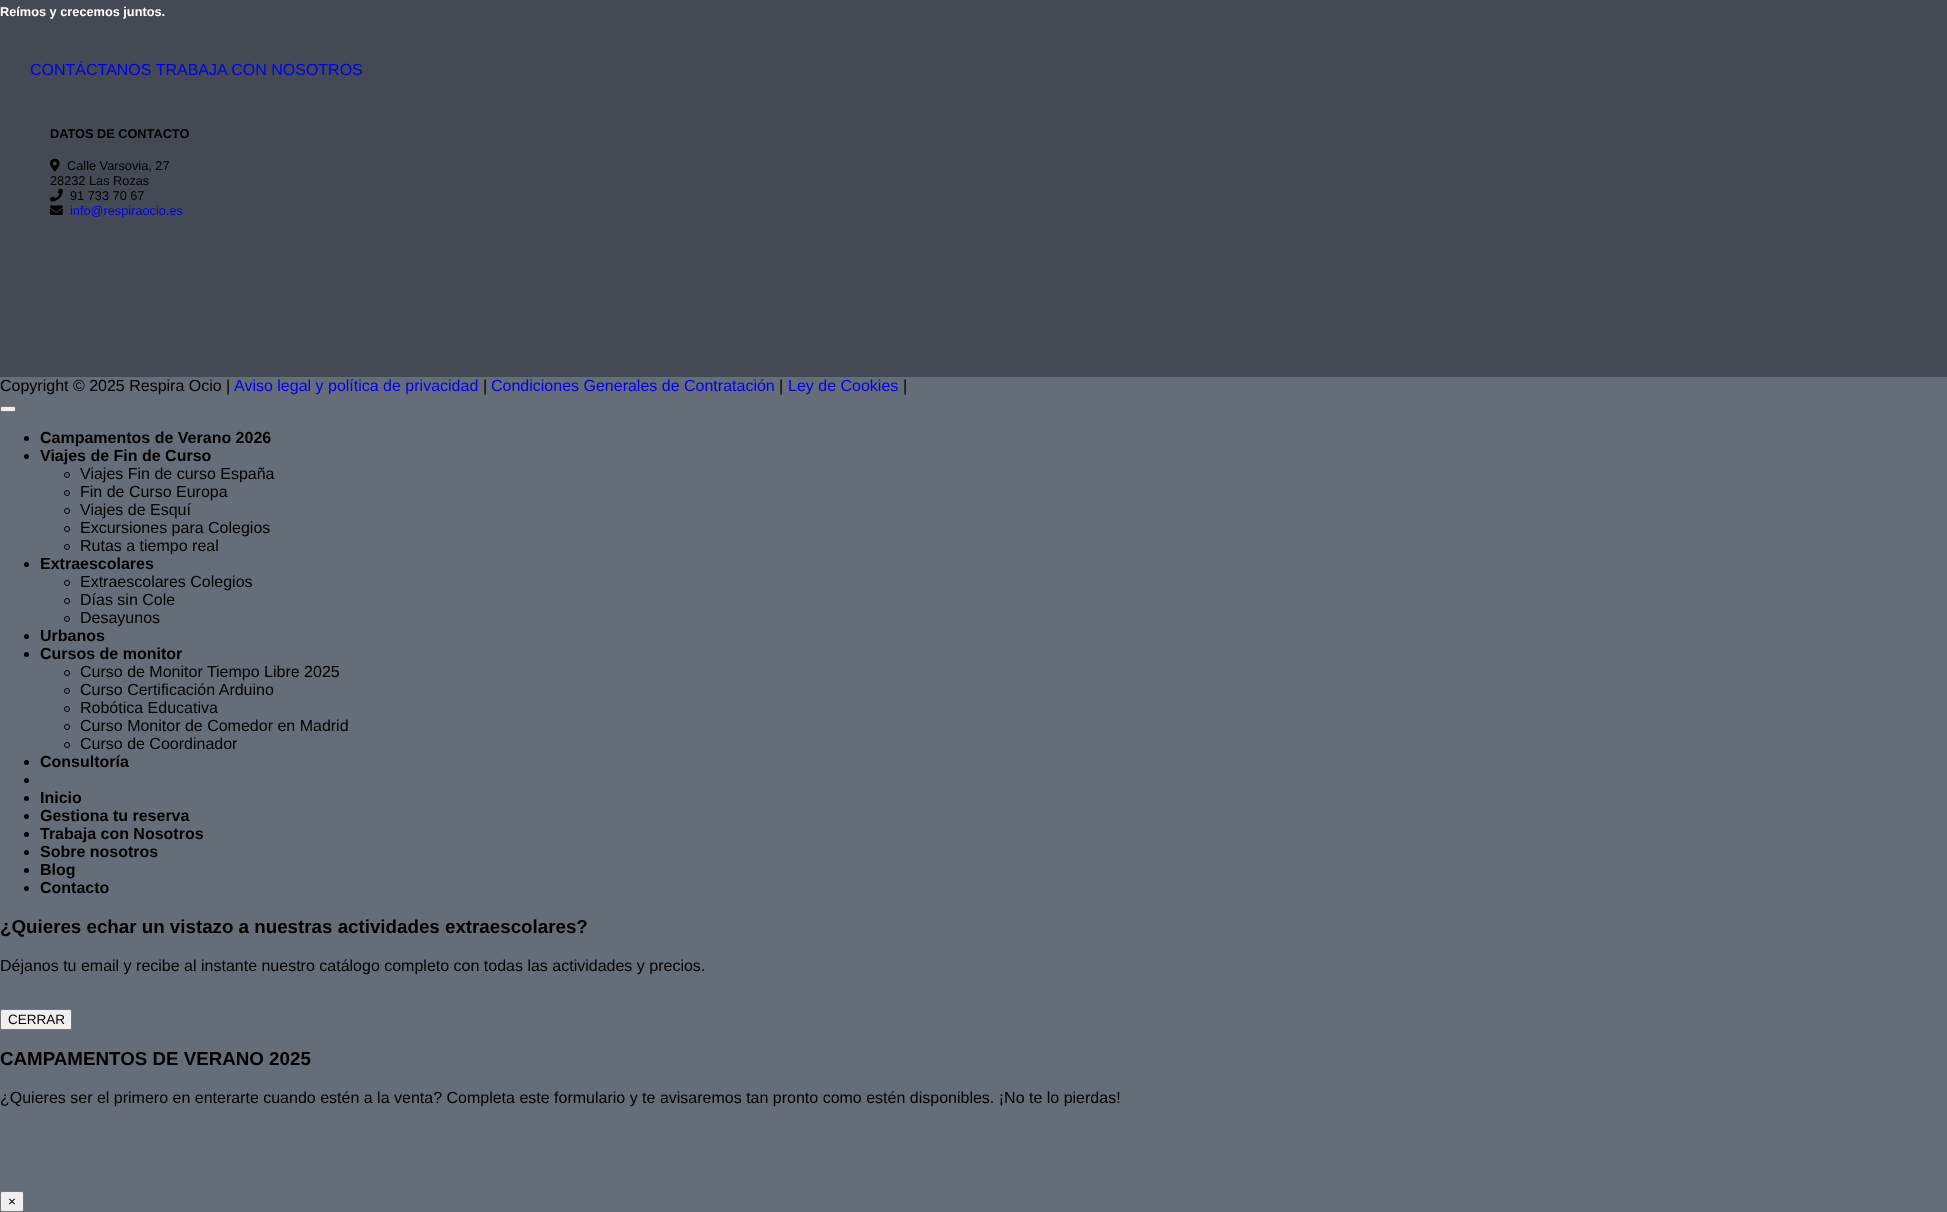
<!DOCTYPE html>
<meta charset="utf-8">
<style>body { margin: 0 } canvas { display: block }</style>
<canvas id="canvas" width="1947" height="1212"></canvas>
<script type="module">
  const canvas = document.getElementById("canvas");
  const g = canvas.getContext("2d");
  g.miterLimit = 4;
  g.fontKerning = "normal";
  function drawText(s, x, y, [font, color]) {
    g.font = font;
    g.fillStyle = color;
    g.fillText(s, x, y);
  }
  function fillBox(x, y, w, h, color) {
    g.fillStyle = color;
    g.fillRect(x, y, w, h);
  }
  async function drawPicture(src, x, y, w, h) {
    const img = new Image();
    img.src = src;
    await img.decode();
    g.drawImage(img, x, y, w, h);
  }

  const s1 = ["bold 12.75px Liberation Sans", "#FFFFFF"];
  const s2 = ["16px Liberation Sans", "#0000EE"];
  const s3 = ["bold 12.75px Liberation Sans", "#000000"];
  const s4 = ["12.75px Liberation Sans", "#000000"];
  const s5 = ["12.75px Liberation Sans", "#0000EE"];
  const s6 = ["16px Liberation Sans", "#000000"];
  const s7 = ["bold 16px Liberation Sans", "#000000"];
  const s8 = ["bold 18.75px Liberation Sans", "#000000"];
  const s9 = ["13.5px Liberation Sans", "#000000"];

  fillBox(0, 0, 1947, 1212, "#656D78");
  fillBox(0, 0, 1947, 377, "#434A54");
  drawText("Reímos y crecemos juntos.", 0, 16, s1);
  drawText("CONTÁCTANOS TRABAJA CON NOSOTROS", 30, 75, s2);
  drawText("DATOS DE CONTACTO", 50, 138, s3);
  await drawPicture("pic1.png", 50, 158, 10, 14);
  drawText("Calle Varsovia, 27", 67, 170, s4);
  drawText("28232 Las Rozas", 50, 185, s4);
  await drawPicture("pic2.png", 50, 188, 13, 14);
  drawText("91 733 70 67", 70, 200, s4);
  await drawPicture("pic3.png", 50, 205, 13, 10);
  drawText("info@respiraocio.es", 70, 215, s5);
  drawText("Copyright © 2025 Respira Ocio |", 0, 391, s6);
  drawText("Aviso legal y política de privacidad", 234, 391, s2);
  drawText("|", 483, 391, s6);
  drawText("Condiciones Generales de Contratación", 491, 391, s2);
  drawText("|", 779, 391, s6);
  drawText("Ley de Cookies", 788, 391, s2);
  drawText("|", 903, 391, s6);
  g.fillStyle = "#EFEFEF";
  g.beginPath();
  g.roundRect(0.5, 406.5, 15, 5, 1.5);
  g.fill();
  g.strokeStyle = "#767676";
  g.stroke();
  g.fillStyle = "#000000";
  g.beginPath();
  g.arc(26.5, 438.5, 2.5, 0, Math.PI * 2);
  g.fill();
  drawText("Campamentos de Verano 2026", 40, 443, s7);
  g.beginPath();
  g.arc(26.5, 456.5, 2.5, 0, Math.PI * 2);
  g.fill();
  drawText("Viajes de Fin de Curso", 40, 461, s7);
  g.beginPath();
  g.arc(67, 475, 2.5, 0, Math.PI * 2);
  g.strokeStyle = "#000000";
  g.stroke();
  drawText("Viajes Fin de curso España", 80, 479, s6);
  g.beginPath();
  g.arc(67, 493, 2.5, 0, Math.PI * 2);
  g.stroke();
  drawText("Fin de Curso Europa", 80, 497, s6);
  g.beginPath();
  g.arc(67, 511, 2.5, 0, Math.PI * 2);
  g.stroke();
  drawText("Viajes de Esquí", 80, 515, s6);
  g.beginPath();
  g.arc(67, 529, 2.5, 0, Math.PI * 2);
  g.stroke();
  drawText("Excursiones para Colegios", 80, 533, s6);
  g.beginPath();
  g.arc(67, 547, 2.5, 0, Math.PI * 2);
  g.stroke();
  drawText("Rutas a tiempo real", 80, 551, s6);
  g.beginPath();
  g.arc(26.5, 564.5, 2.5, 0, Math.PI * 2);
  g.fill();
  drawText("Extraescolares", 40, 569, s7);
  g.beginPath();
  g.arc(67, 583, 2.5, 0, Math.PI * 2);
  g.stroke();
  drawText("Extraescolares Colegios", 80, 587, s6);
  g.beginPath();
  g.arc(67, 601, 2.5, 0, Math.PI * 2);
  g.stroke();
  drawText("Días sin Cole", 80, 605, s6);
  g.beginPath();
  g.arc(67, 619, 2.5, 0, Math.PI * 2);
  g.stroke();
  drawText("Desayunos", 80, 623, s6);
  g.beginPath();
  g.arc(26.5, 636.5, 2.5, 0, Math.PI * 2);
  g.fill();
  drawText("Urbanos", 40, 641, s7);
  g.beginPath();
  g.arc(26.5, 654.5, 2.5, 0, Math.PI * 2);
  g.fill();
  drawText("Cursos de monitor", 40, 659, s7);
  g.beginPath();
  g.arc(67, 673, 2.5, 0, Math.PI * 2);
  g.stroke();
  drawText("Curso de Monitor Tiempo Libre 2025", 80, 677, s6);
  g.beginPath();
  g.arc(67, 691, 2.5, 0, Math.PI * 2);
  g.stroke();
  drawText("Curso Certificación Arduino", 80, 695, s6);
  g.beginPath();
  g.arc(67, 709, 2.5, 0, Math.PI * 2);
  g.stroke();
  drawText("Robótica Educativa", 80, 713, s6);
  g.beginPath();
  g.arc(67, 727, 2.5, 0, Math.PI * 2);
  g.stroke();
  drawText("Curso Monitor de Comedor en Madrid", 80, 731, s6);
  g.beginPath();
  g.arc(67, 745, 2.5, 0, Math.PI * 2);
  g.stroke();
  drawText("Curso de Coordinador", 80, 749, s6);
  g.beginPath();
  g.arc(26.5, 762.5, 2.5, 0, Math.PI * 2);
  g.fill();
  drawText("Consultoría", 40, 767, s7);
  g.beginPath();
  g.arc(26.5, 780.5, 2.5, 0, Math.PI * 2);
  g.fill();
  g.beginPath();
  g.arc(26.5, 798.5, 2.5, 0, Math.PI * 2);
  g.fill();
  drawText("Inicio", 40, 803, s7);
  g.beginPath();
  g.arc(26.5, 816.5, 2.5, 0, Math.PI * 2);
  g.fill();
  drawText("Gestiona tu reserva", 40, 821, s7);
  g.beginPath();
  g.arc(26.5, 834.5, 2.5, 0, Math.PI * 2);
  g.fill();
  drawText("Trabaja con Nosotros", 40, 839, s7);
  g.beginPath();
  g.arc(26.5, 852.5, 2.5, 0, Math.PI * 2);
  g.fill();
  drawText("Sobre nosotros", 40, 857, s7);
  g.beginPath();
  g.arc(26.5, 870.5, 2.5, 0, Math.PI * 2);
  g.fill();
  drawText("Blog", 40, 875, s7);
  g.beginPath();
  g.arc(26.5, 888.5, 2.5, 0, Math.PI * 2);
  g.fill();
  drawText("Contacto", 40, 893, s7);
  drawText("¿Quieres echar un vistazo a nuestras actividades extraescolares?", 0, 933, s8);
  drawText("Déjanos tu email y recibe al instante nuestro catálogo completo con todas las actividades y precios.", 0, 971, s6);
  g.fillStyle = "#EFEFEF";
  g.beginPath();
  g.roundRect(0.5, 1009.5, 71, 20, 1.5);
  g.fill();
  g.strokeStyle = "#767676";
  g.stroke();
  drawText("CERRAR", 8, 1024, s9);
  drawText("CAMPAMENTOS DE VERANO 2025", 0, 1065, s8);
  drawText("¿Quieres ser el primero en enterarte cuando estén a la venta? Completa este formulario y te avisaremos tan pronto como estén disponibles. ¡No te lo pierdas!", 0, 1103, s6);
  g.fillStyle = "#EFEFEF";
  g.beginPath();
  g.roundRect(0.5, 1191.5, 23, 20, 1.5);
  g.fill();
  g.stroke();
  drawText("×", 8, 1206, s9);
</script>
